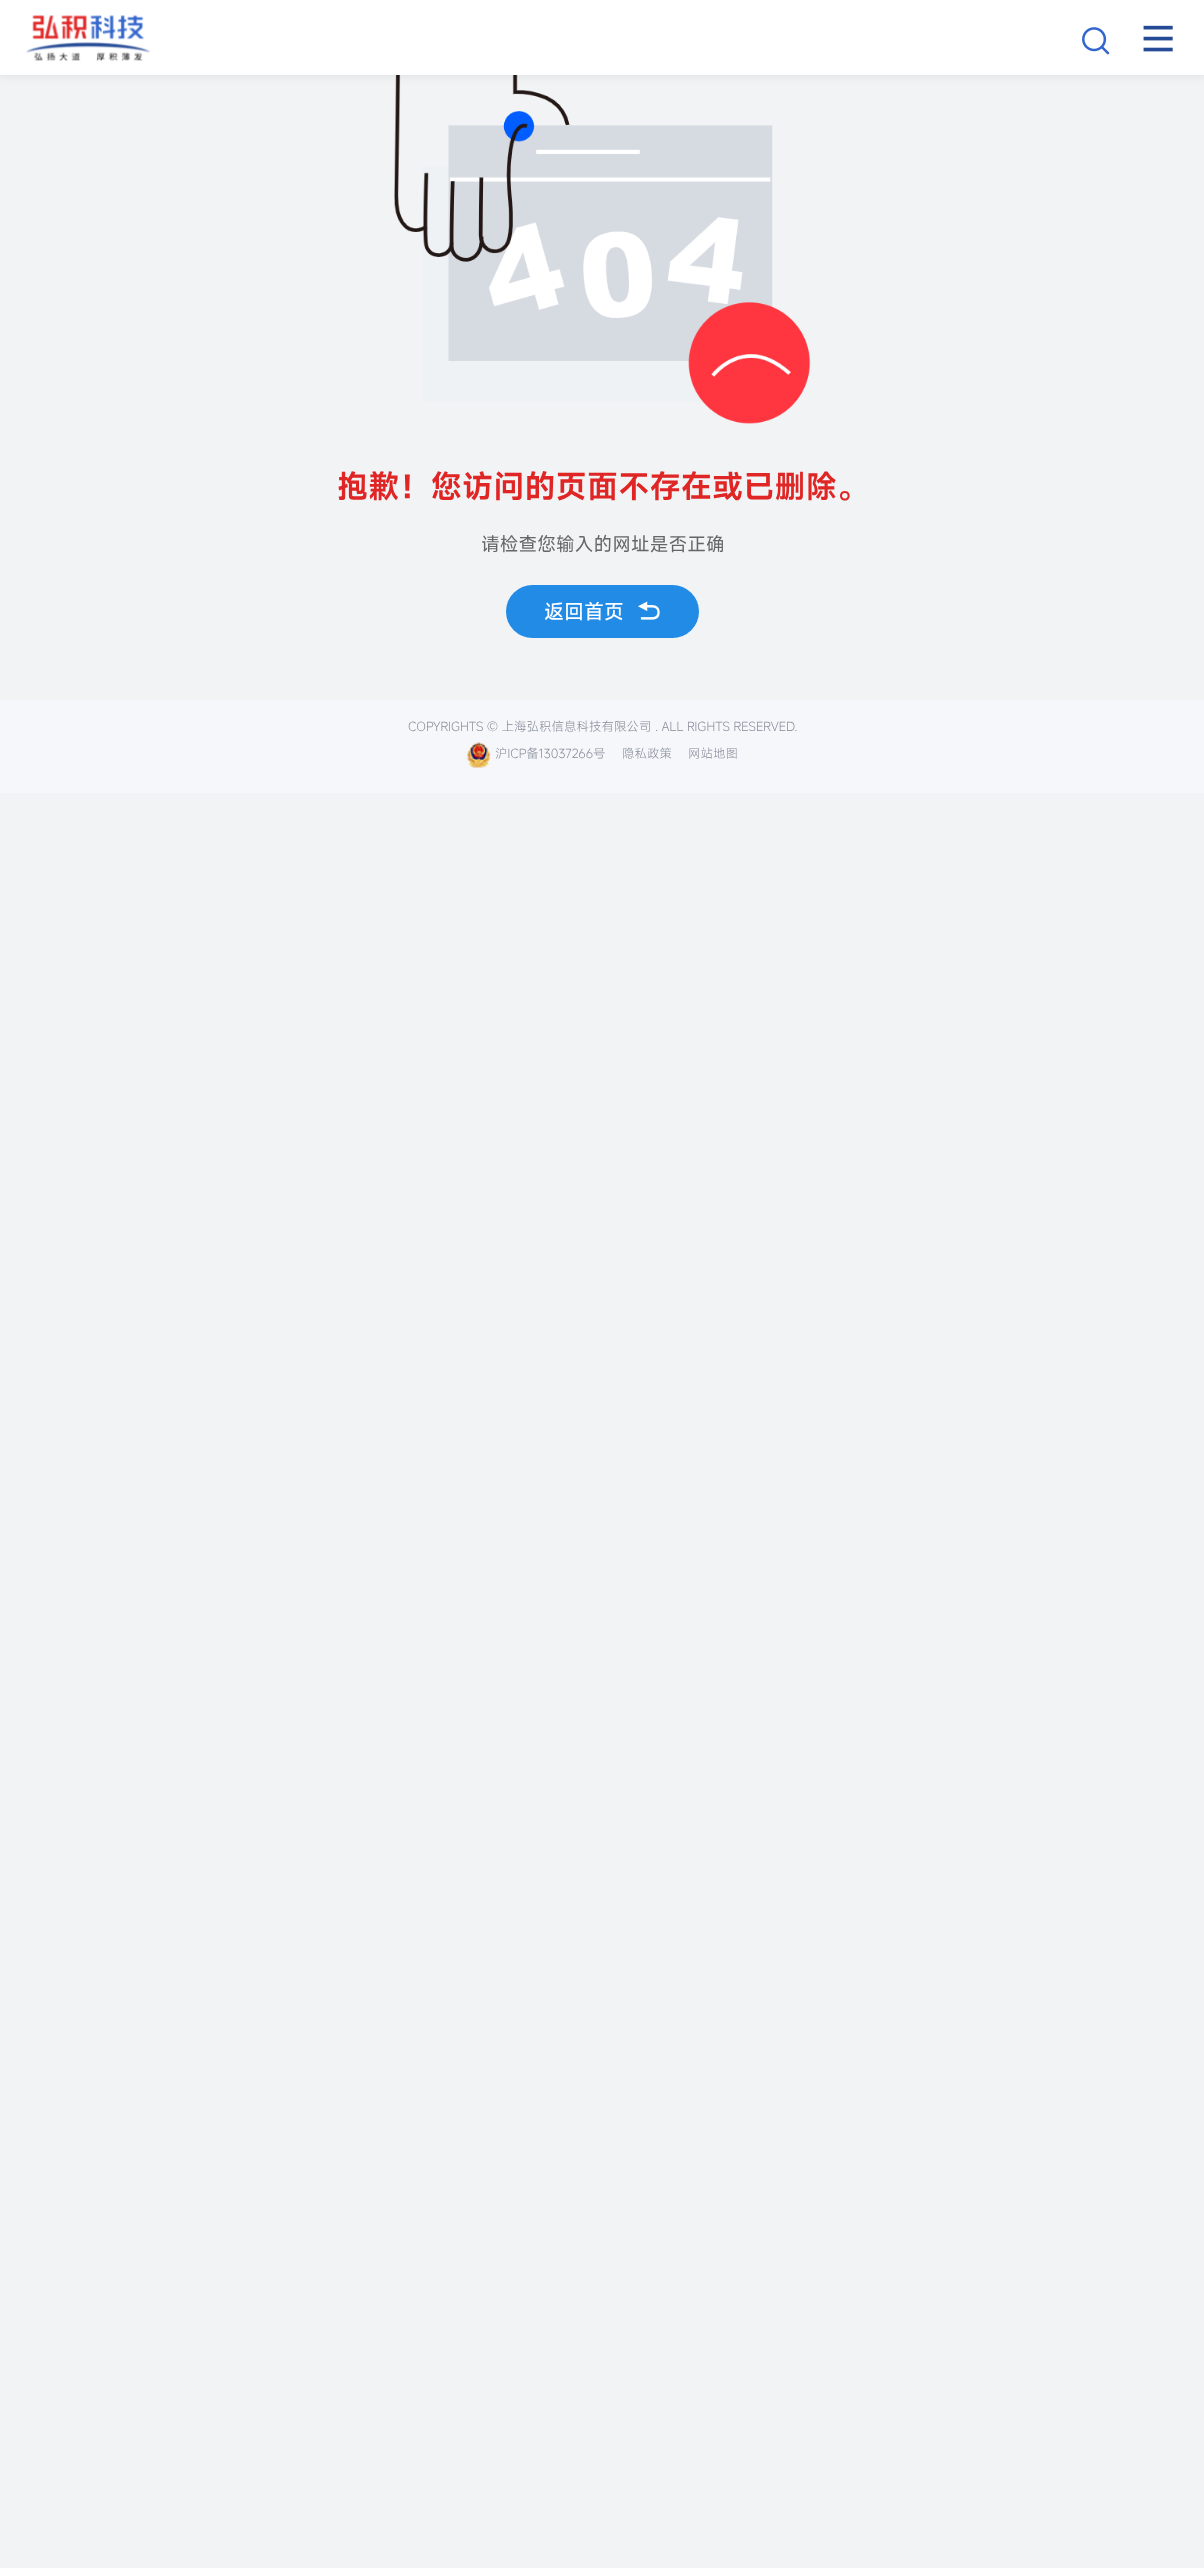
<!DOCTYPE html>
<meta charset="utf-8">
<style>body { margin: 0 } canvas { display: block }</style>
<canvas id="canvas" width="1204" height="2568"></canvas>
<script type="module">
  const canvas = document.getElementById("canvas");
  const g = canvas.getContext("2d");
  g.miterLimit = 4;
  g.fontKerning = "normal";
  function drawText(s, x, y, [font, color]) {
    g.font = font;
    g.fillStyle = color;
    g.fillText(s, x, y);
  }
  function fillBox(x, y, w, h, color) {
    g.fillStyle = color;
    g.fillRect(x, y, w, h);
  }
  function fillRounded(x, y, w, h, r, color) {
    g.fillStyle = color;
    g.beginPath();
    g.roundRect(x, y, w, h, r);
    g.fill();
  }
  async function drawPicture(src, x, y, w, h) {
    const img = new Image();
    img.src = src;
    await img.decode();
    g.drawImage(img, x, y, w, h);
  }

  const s1 = ["600 31.25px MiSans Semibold", "#E02525"];
  const s2 = ["18.75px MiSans", "#666666"];
  const s3 = ["500 20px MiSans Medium", "#FFFFFF"];
  const s4 = ["300 12.5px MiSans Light", "#848B99"];

  fillBox(0, 0, 1204, 2568, "#F1F3F5");
  await drawPicture("pic4.png", 394, 75, 417, 349);
  g.fillStyle = "rgba(0, 0, 0, 0.08)";
  g.filter = "blur(5px)";
  g.beginPath();
  g.rect(-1, -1, 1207, 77);
  g.fill();
  g.filter = "none";
  fillBox(0, 0, 1204, 75, "#FFFFFF");
  await drawPicture("pic1.png", 26, 15, 124, 46);
  await drawPicture("pic2.png", 1082, 27, 28, 28);
  await drawPicture("pic3.png", 1143, 25, 30, 27);
  drawText("抱歉！您访问的页面不存在或已删除。", 337, 498, s1);
  drawText("请检查您输入的网址是否正确", 481, 551, s2);
  fillRounded(506, 585, 193, 53, 26.5, "#228BE6");
  drawText("返回首页", 544, 619, s3);
  await drawPicture("pic5.png", 638, 601, 22, 19);
  fillBox(0, 700, 1204, 93, "#F6F7FA");
  drawText("COPYRIGHTS © 上海弘积信息科技有限公司 . ALL RIGHTS RESERVED.", 408, 731, s4);
  await drawPicture("pic6.png", 467, 742, 24, 26);
  drawText("沪ICP备13037266号", 495, 758, s4);
  drawText("隐私政策", 622, 758, s4);
  drawText("网站地图", 688, 758, s4);
</script>
